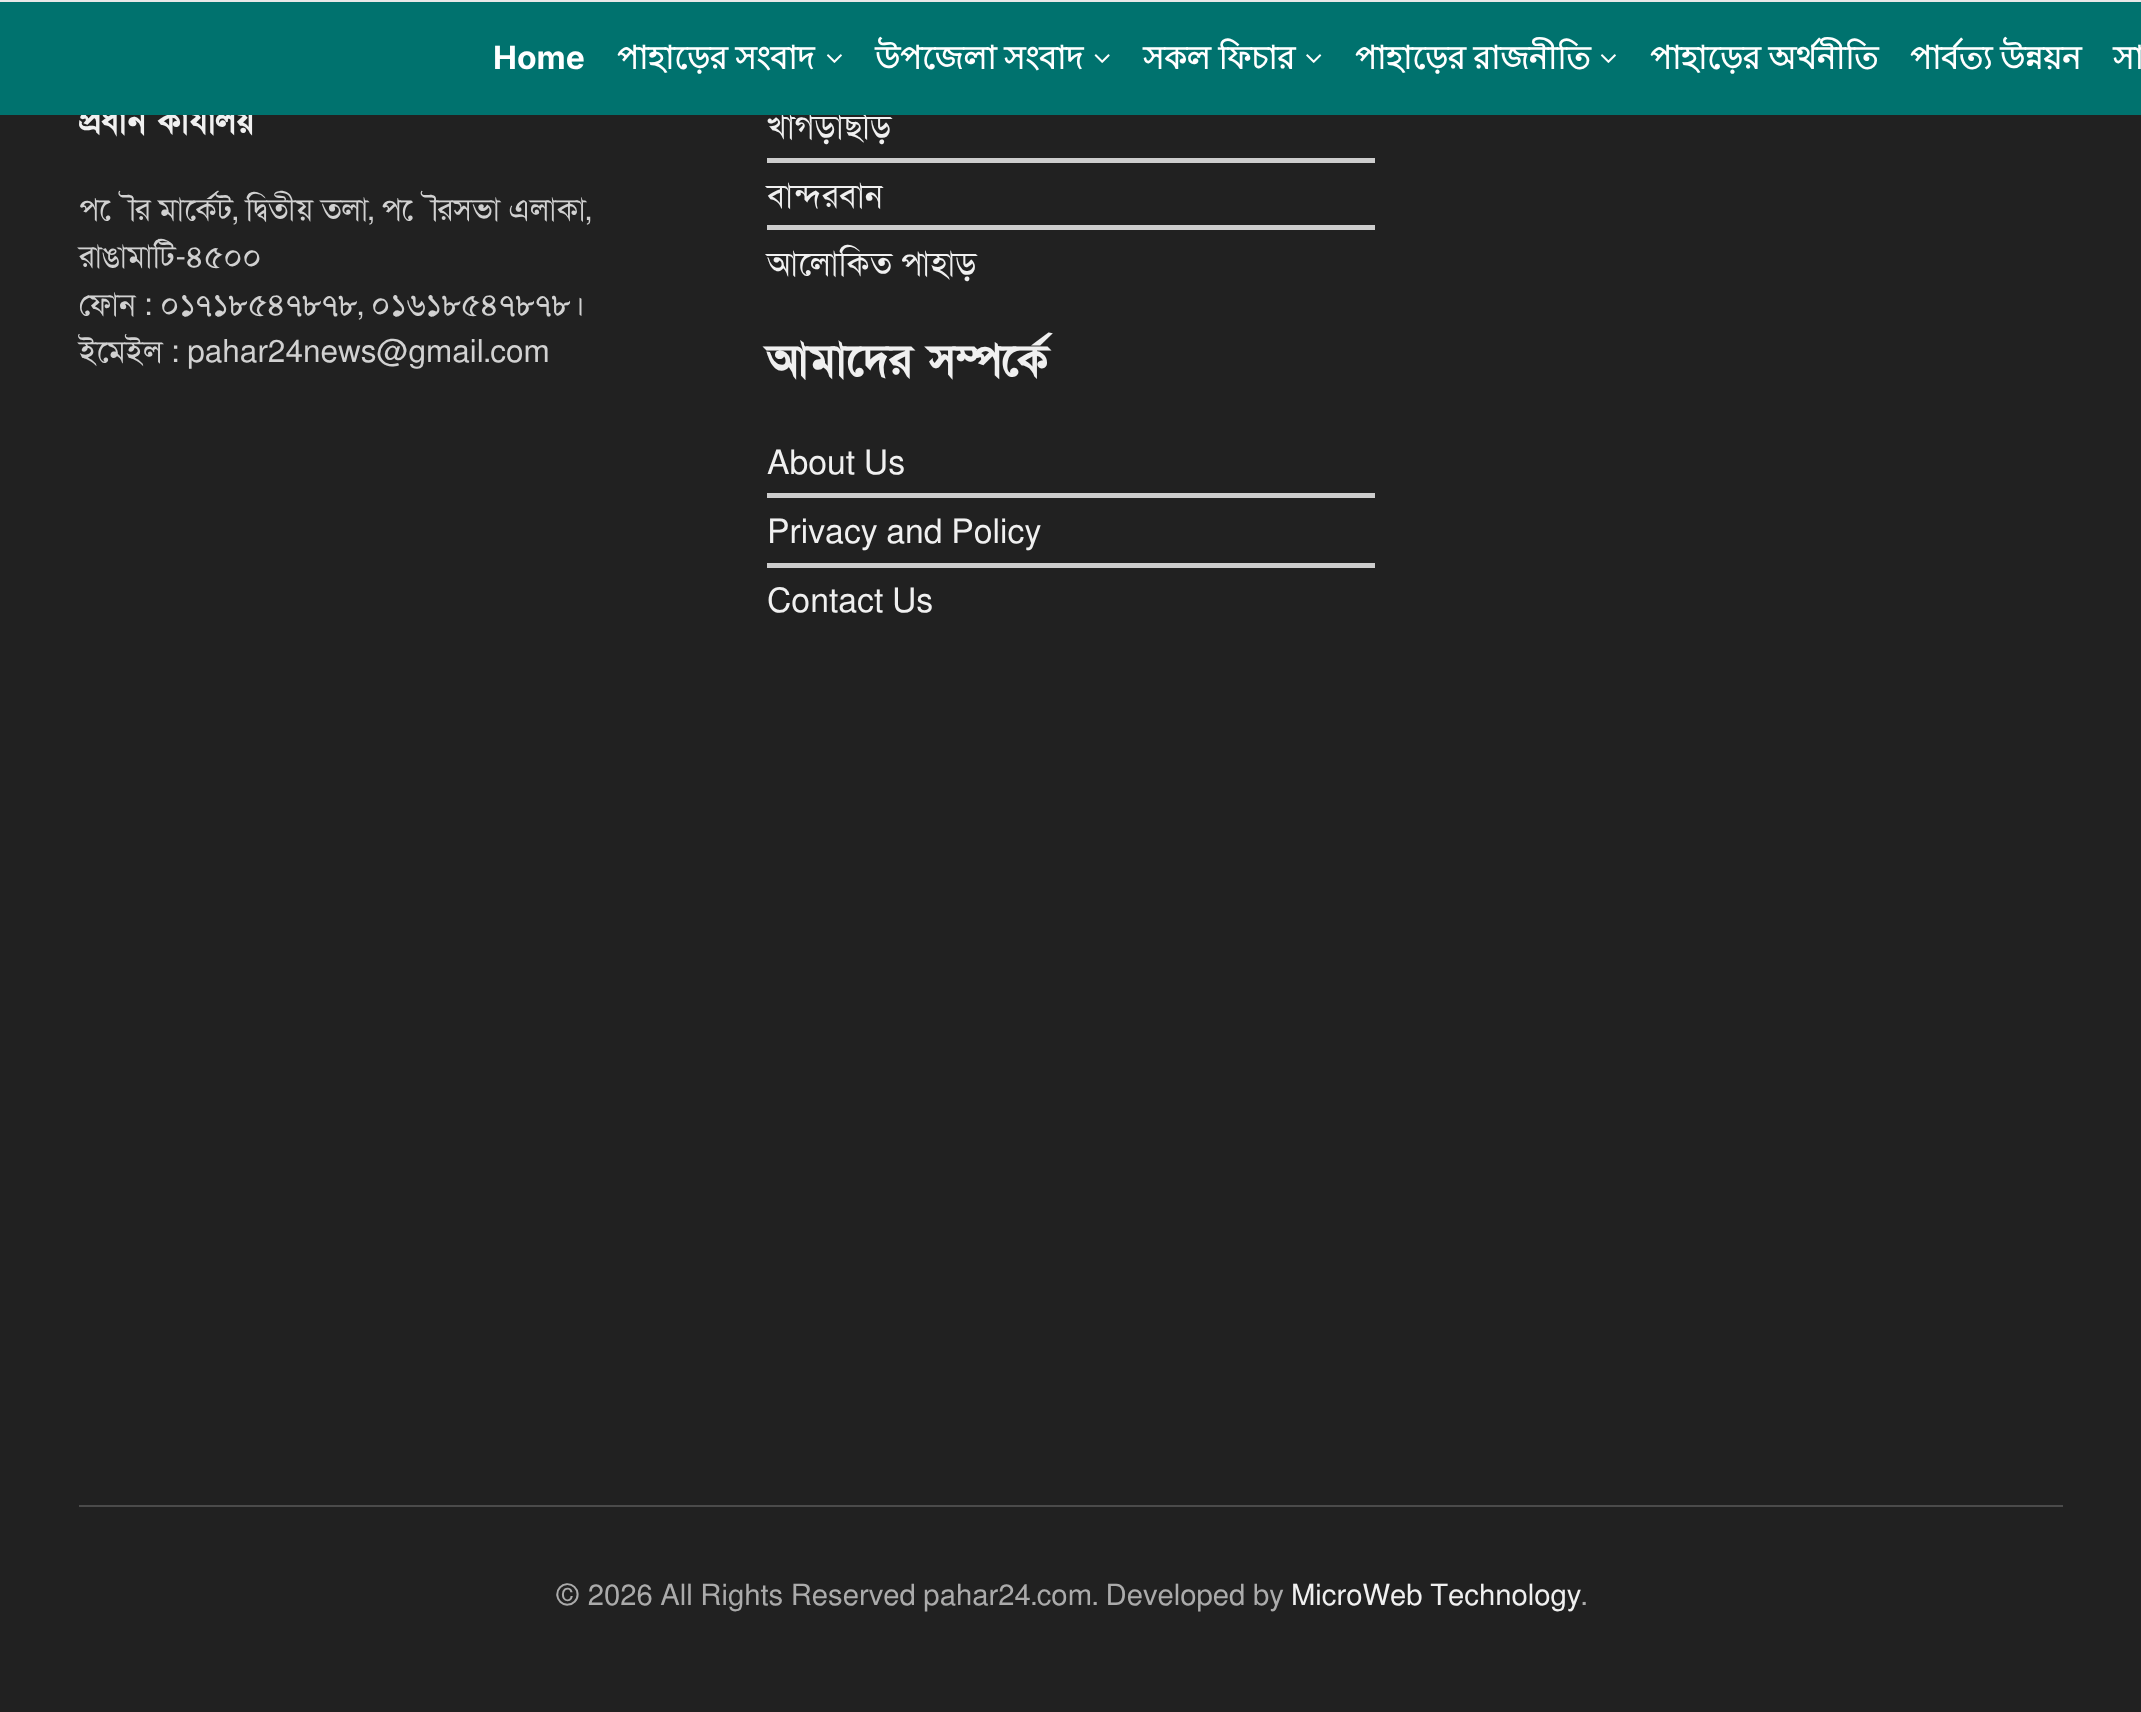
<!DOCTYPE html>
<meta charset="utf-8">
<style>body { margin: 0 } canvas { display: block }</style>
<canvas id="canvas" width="2141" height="1712"></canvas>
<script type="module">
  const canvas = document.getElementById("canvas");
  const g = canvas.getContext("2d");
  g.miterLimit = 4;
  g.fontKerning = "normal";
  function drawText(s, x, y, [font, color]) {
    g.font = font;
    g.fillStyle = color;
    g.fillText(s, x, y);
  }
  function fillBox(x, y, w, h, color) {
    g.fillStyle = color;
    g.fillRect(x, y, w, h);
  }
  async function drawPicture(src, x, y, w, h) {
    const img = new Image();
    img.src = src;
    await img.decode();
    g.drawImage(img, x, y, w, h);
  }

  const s1 = ["bold 33.75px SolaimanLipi", "#F0F0F0"];
  const s2 = ["33.75px SolaimanLipi", "#F0F0F0"];
  const s3 = ["bold 32px Inter", "#FFFFFF"];
  const s4 = ["bold 32px Lohit Bengali", "#FFFFFF"];
  const s5 = ["31.5px SolaimanLipi", "#D1D1D1"];
  const s6 = ["bold 45px SolaimanLipi", "#F0F0F0"];
  const s7 = ["29.25px SolaimanLipi", "#ABABAB"];
  const s8 = ["29.25px SolaimanLipi", "#F0F0F0"];

  fillBox(0, 0, 2141, 1712, "#212121");
  drawText("প্রধান কার্যালয়", 79, 132, s1);
  drawText("খাগড়াছড়ি", 767, 138, s2);
  fillBox(0, 2, 2141, 113, "#00726E");
  fillBox(0, 0, 2141, 2, "#E8E8E8");
  drawText("Home", 493, 69, s3);
  g.wordSpacing = "-1px";
  drawText("পাহাড়ের সংবাদ", 617, 69, s4);
  await drawPicture("pic1.png", 826, 54, 16, 9);
  drawText("উপজেলা সংবাদ", 875, 69, s4);
  await drawPicture("pic2.png", 1094, 54, 16, 9);
  drawText("সকল ফিচার", 1143, 69, s4);
  await drawPicture("pic3.png", 1306, 54, 16, 9);
  drawText("পাহাড়ের রাজনীতি", 1355, 69, s4);
  await drawPicture("pic1.png", 1600, 54, 16, 9);
  drawText("পাহাড়ের অর্থনীতি", 1650, 69, s4);
  drawText("পার্বত্য উন্নয়ন", 1910, 69, s4);
  g.wordSpacing = "0px";
  drawText("সা", 2113, 69, s4);
  drawText("পৌর মার্কেট, দ্বিতীয় তলা, পৌরসভা এলাকা,", 79, 220, s5);
  drawText("রাঙামাটি-৪৫০০", 79, 267, s5);
  drawText("ফোন : ০১৭১৮৫৪৭৮৭৮, ০১৬১৮৫৪৭৮৭৮।", 79, 315, s5);
  drawText("ইমেইল : pahar24news@gmail.com", 79, 362, s5);
  fillBox(767, 158, 608, 5, "#CDCDCD");
  drawText("বান্দরবান", 767, 207, s2);
  fillBox(767, 225, 608, 5, "#CDCDCD");
  drawText("আলোকিত পাহাড়", 767, 275, s2);
  drawText("আমাদের সম্পর্কে", 767, 375, s6);
  drawText("About Us", 767, 474, s2);
  fillBox(767, 493, 608, 5, "#CDCDCD");
  drawText("Privacy and Policy", 767, 543, s2);
  fillBox(767, 563, 608, 5, "#CDCDCD");
  drawText("Contact Us", 767, 612, s2);
  fillBox(79, 1505, 1984, 2, "#4B4B4B");
  drawText("© 2026 All Rights Reserved pahar24.com. Developed by", 555, 1605, s7);
  drawText("MicroWeb Technology", 1291, 1605, s8);
  drawText(".", 1581, 1605, s7);
</script>
